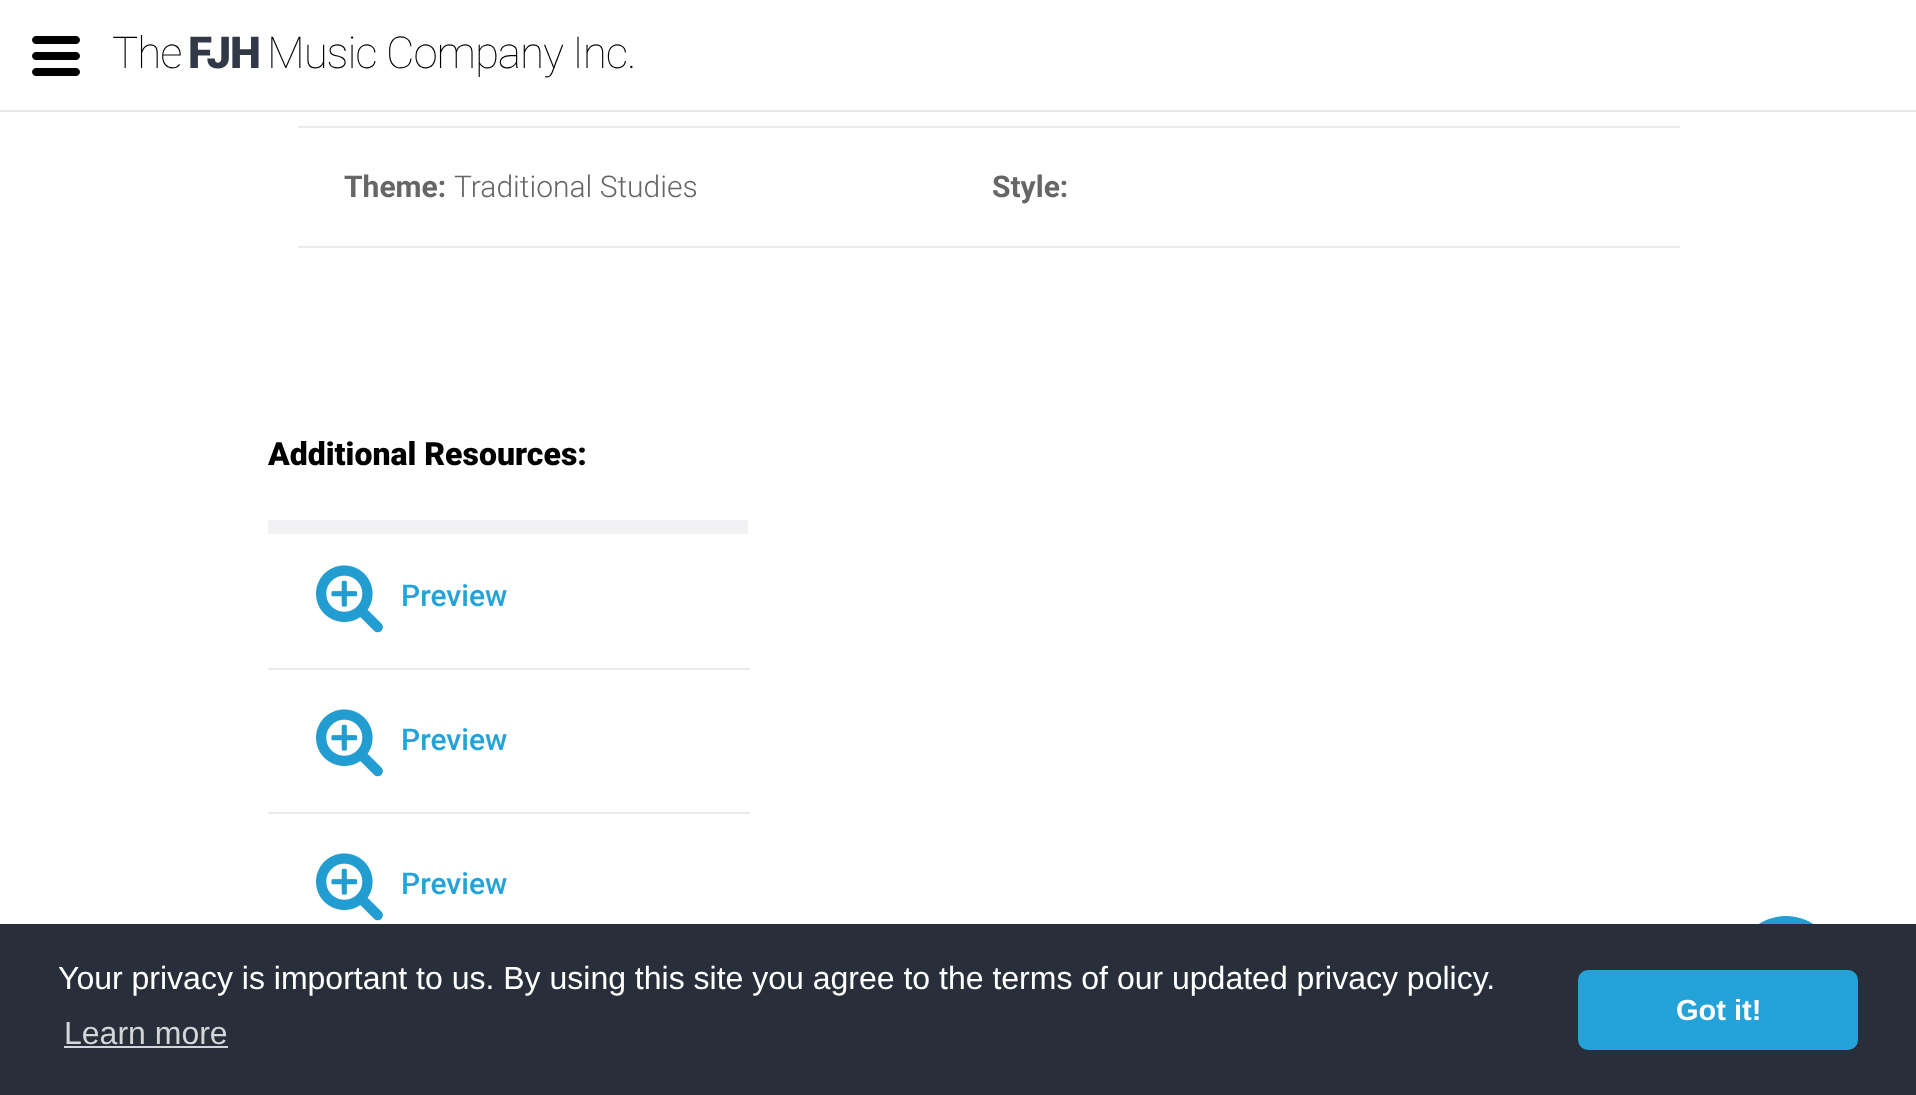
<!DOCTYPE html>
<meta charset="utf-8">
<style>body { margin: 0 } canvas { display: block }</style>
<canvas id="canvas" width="1916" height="1095"></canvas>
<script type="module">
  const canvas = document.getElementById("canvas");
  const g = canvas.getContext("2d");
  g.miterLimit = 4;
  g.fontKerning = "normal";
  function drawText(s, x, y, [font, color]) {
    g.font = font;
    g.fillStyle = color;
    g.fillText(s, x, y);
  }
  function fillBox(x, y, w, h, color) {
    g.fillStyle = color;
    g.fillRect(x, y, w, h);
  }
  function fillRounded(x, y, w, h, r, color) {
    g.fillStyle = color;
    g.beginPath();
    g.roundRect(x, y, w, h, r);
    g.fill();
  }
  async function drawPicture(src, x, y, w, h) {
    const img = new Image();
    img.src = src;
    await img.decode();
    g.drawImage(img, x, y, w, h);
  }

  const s1 = ["100 44px Roboto", "#000000"];
  const s2 = ["900 44px Roboto", "#323946"];
  const s3 = ["bold 30px Roboto", "#666666"];
  const s4 = ["300 30px Roboto", "#666666"];
  const s5 = ["900 32px Roboto", "#000000"];
  const s6 = ["500 30px Roboto", "#24A3D8"];
  const s7 = ["32px Liberation Sans", "#FFFFFF"];
  const s8 = ["32px Liberation Sans", "#D4D5D8"];
  const s9 = ["bold 29px Liberation Sans", "#FFFFFF"];

  fillBox(0, 0, 1916, 1095, "#FFFFFF");
  g.fillStyle = "#000000";
  g.beginPath();
  g.moveTo(76, 60);
  g.lineTo(36, 60);
  g.bezierCurveTo(34, 60, 32, 58, 32, 56);
  g.bezierCurveTo(32, 54, 34, 52, 36, 52);
  g.lineTo(76, 52);
  g.bezierCurveTo(78, 52, 80, 54, 80, 56);
  g.bezierCurveTo(80, 58, 78, 60, 76, 60);
  g.closePath();
  g.moveTo(76, 76);
  g.lineTo(36, 76);
  g.bezierCurveTo(34, 76, 32, 74, 32, 72);
  g.bezierCurveTo(32, 70, 34, 68, 36, 68);
  g.lineTo(76, 68);
  g.bezierCurveTo(78, 68, 80, 70, 80, 72);
  g.bezierCurveTo(80, 74, 78, 76, 76, 76);
  g.closePath();
  g.moveTo(76, 44);
  g.lineTo(36, 44);
  g.bezierCurveTo(34, 44, 32, 42, 32, 40);
  g.bezierCurveTo(32, 38, 34, 36, 36, 36);
  g.lineTo(76, 36);
  g.bezierCurveTo(78, 36, 80, 38, 80, 40);
  g.bezierCurveTo(80, 42, 78, 44, 76, 44);
  g.closePath();
  g.fill();
  g.letterSpacing = "-1.1px";
  drawText("The", 112, 68, s1);
  drawText("FJH", 188, 68, s2);
  drawText("Music Company Inc.", 267, 68, s1);
  fillBox(0, 110, 1916, 2, "#E8E8E8");
  fillBox(298, 126, 1382, 2, "#EBEBEB");
  g.letterSpacing = "0px";
  drawText("Theme:", 344, 197, s3);
  drawText("Traditional Studies", 454, 197, s4);
  fillBox(298, 246, 1382, 2, "#EBEBEB");
  drawText("Style:", 992, 197, s3);
  drawText("Additional Resources:", 268, 465, s5);
  fillBox(268, 520, 480, 14, "#F2F2F5");
  fillBox(268, 668, 482, 2, "#EBEBEB");
  await drawPicture("pic1.png", 316, 565, 67, 68);
  drawText("Preview", 401, 606, s6);
  fillBox(268, 812, 482, 2, "#EBEBEB");
  await drawPicture("pic1.png", 316, 709, 67, 68);
  drawText("Preview", 401, 750, s6);
  await drawPicture("pic1.png", 316, 853, 67, 68);
  drawText("Preview", 401, 894, s6);
  g.fillStyle = "#229DD1";
  g.beginPath();
  g.arc(1786, 966, 50, 0, Math.PI * 2);
  g.fill();
  fillBox(0, 924, 1916, 171, "#282E3A");
  drawText("Your privacy is important to us. By using this site you agree to the terms of our updated privacy policy.", 58, 989, s7);
  drawText("Learn more", 64, 1044, s8);
  fillBox(64, 1046, 164, 2, "#D4D5D8");
  fillRounded(1578, 970, 280, 80, 10, "#24A3D8");
  drawText("Got it!", 1676, 1020, s9);
</script>
